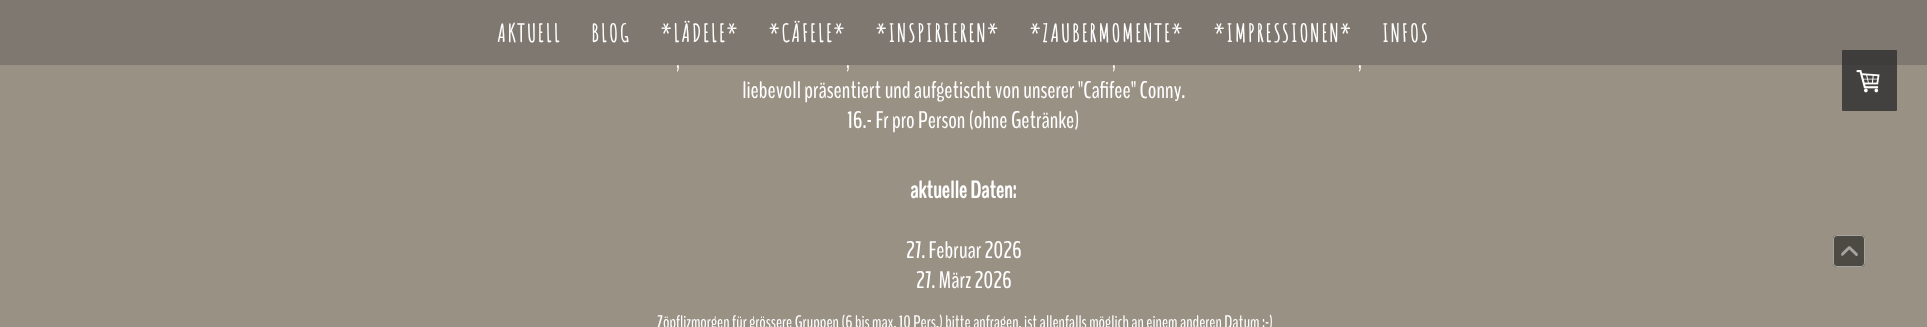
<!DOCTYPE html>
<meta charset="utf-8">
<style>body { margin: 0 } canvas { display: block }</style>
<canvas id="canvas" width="1927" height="327"></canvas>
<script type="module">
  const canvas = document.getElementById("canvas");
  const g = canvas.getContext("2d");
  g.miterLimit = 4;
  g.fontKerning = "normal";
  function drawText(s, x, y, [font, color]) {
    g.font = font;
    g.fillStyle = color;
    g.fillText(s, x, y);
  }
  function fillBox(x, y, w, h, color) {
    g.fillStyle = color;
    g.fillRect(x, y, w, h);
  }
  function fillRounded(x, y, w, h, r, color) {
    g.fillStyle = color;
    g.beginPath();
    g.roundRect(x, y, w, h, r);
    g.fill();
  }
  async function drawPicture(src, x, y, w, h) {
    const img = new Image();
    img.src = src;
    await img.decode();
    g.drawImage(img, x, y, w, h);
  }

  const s1 = ["bold 24px Amatic SC", "#FFFFFF"];
  const s2 = ["24px BenchNine", "#FFFFFF"];
  const s3 = ["bold 24px BenchNine", "#FFFFFF"];
  const s4 = ["18px BenchNine", "#FFFFFF"];

  fillBox(0, 0, 1927, 327, "#9A9185");
  fillBox(0, 0, 1927, 65, "#7F7870");
  g.letterSpacing = "2px";
  drawText("AKTUELL", 497, 42, s1);
  drawText("BLOG", 591, 42, s1);
  drawText("*LÄDELE*", 661, 42, s1);
  drawText("*CÄFELE*", 769, 42, s1);
  drawText("*INSPIRIEREN*", 876, 42, s1);
  drawText("*ZAUBERMOMENTE*", 1030, 42, s1);
  drawText("*IMPRESSIONEN*", 1214, 42, s1);
  drawText("INFOS", 1382, 42, s1);
  g.letterSpacing = "0px";
  drawText(",", 676, 68, s2);
  drawText(",", 846, 68, s2);
  drawText(",", 1112, 68, s2);
  drawText(",", 1358, 68, s2);
  drawText("liebevoll präsentiert und aufgetischt von unserer \"Cafifee\" Conny.", 742, 98, s2);
  drawText("16.- Fr pro Person (ohne Getränke)", 847, 128, s2);
  drawText("aktuelle Daten:", 910, 198, s3);
  drawText("27. Februar 2026", 906, 258, s2);
  drawText("27. März 2026", 916, 288, s2);
  drawText("Zöpflizmorgen für grössere Gruppen (6 bis max. 10 Pers.) bitte anfragen. ist allenfalls möglich an einem anderen Datum ;-)", 657, 328, s4);
  fillRounded(1842, 50, 55, 61, 1, "rgba(51, 51, 51, 0.85)");
  await drawPicture("pic1.png", 1856, 70, 24, 23);
  fillRounded(1833, 235, 32, 32, 4, "#4D4943");
  g.beginPath();
  g.roundRect(1833.5, 235.5, 31, 31, 3.5);
  g.strokeStyle = "rgba(255, 255, 255, 0.5)";
  g.stroke();
  await drawPicture("pic2.png", 1841, 246, 17, 10);
</script>
